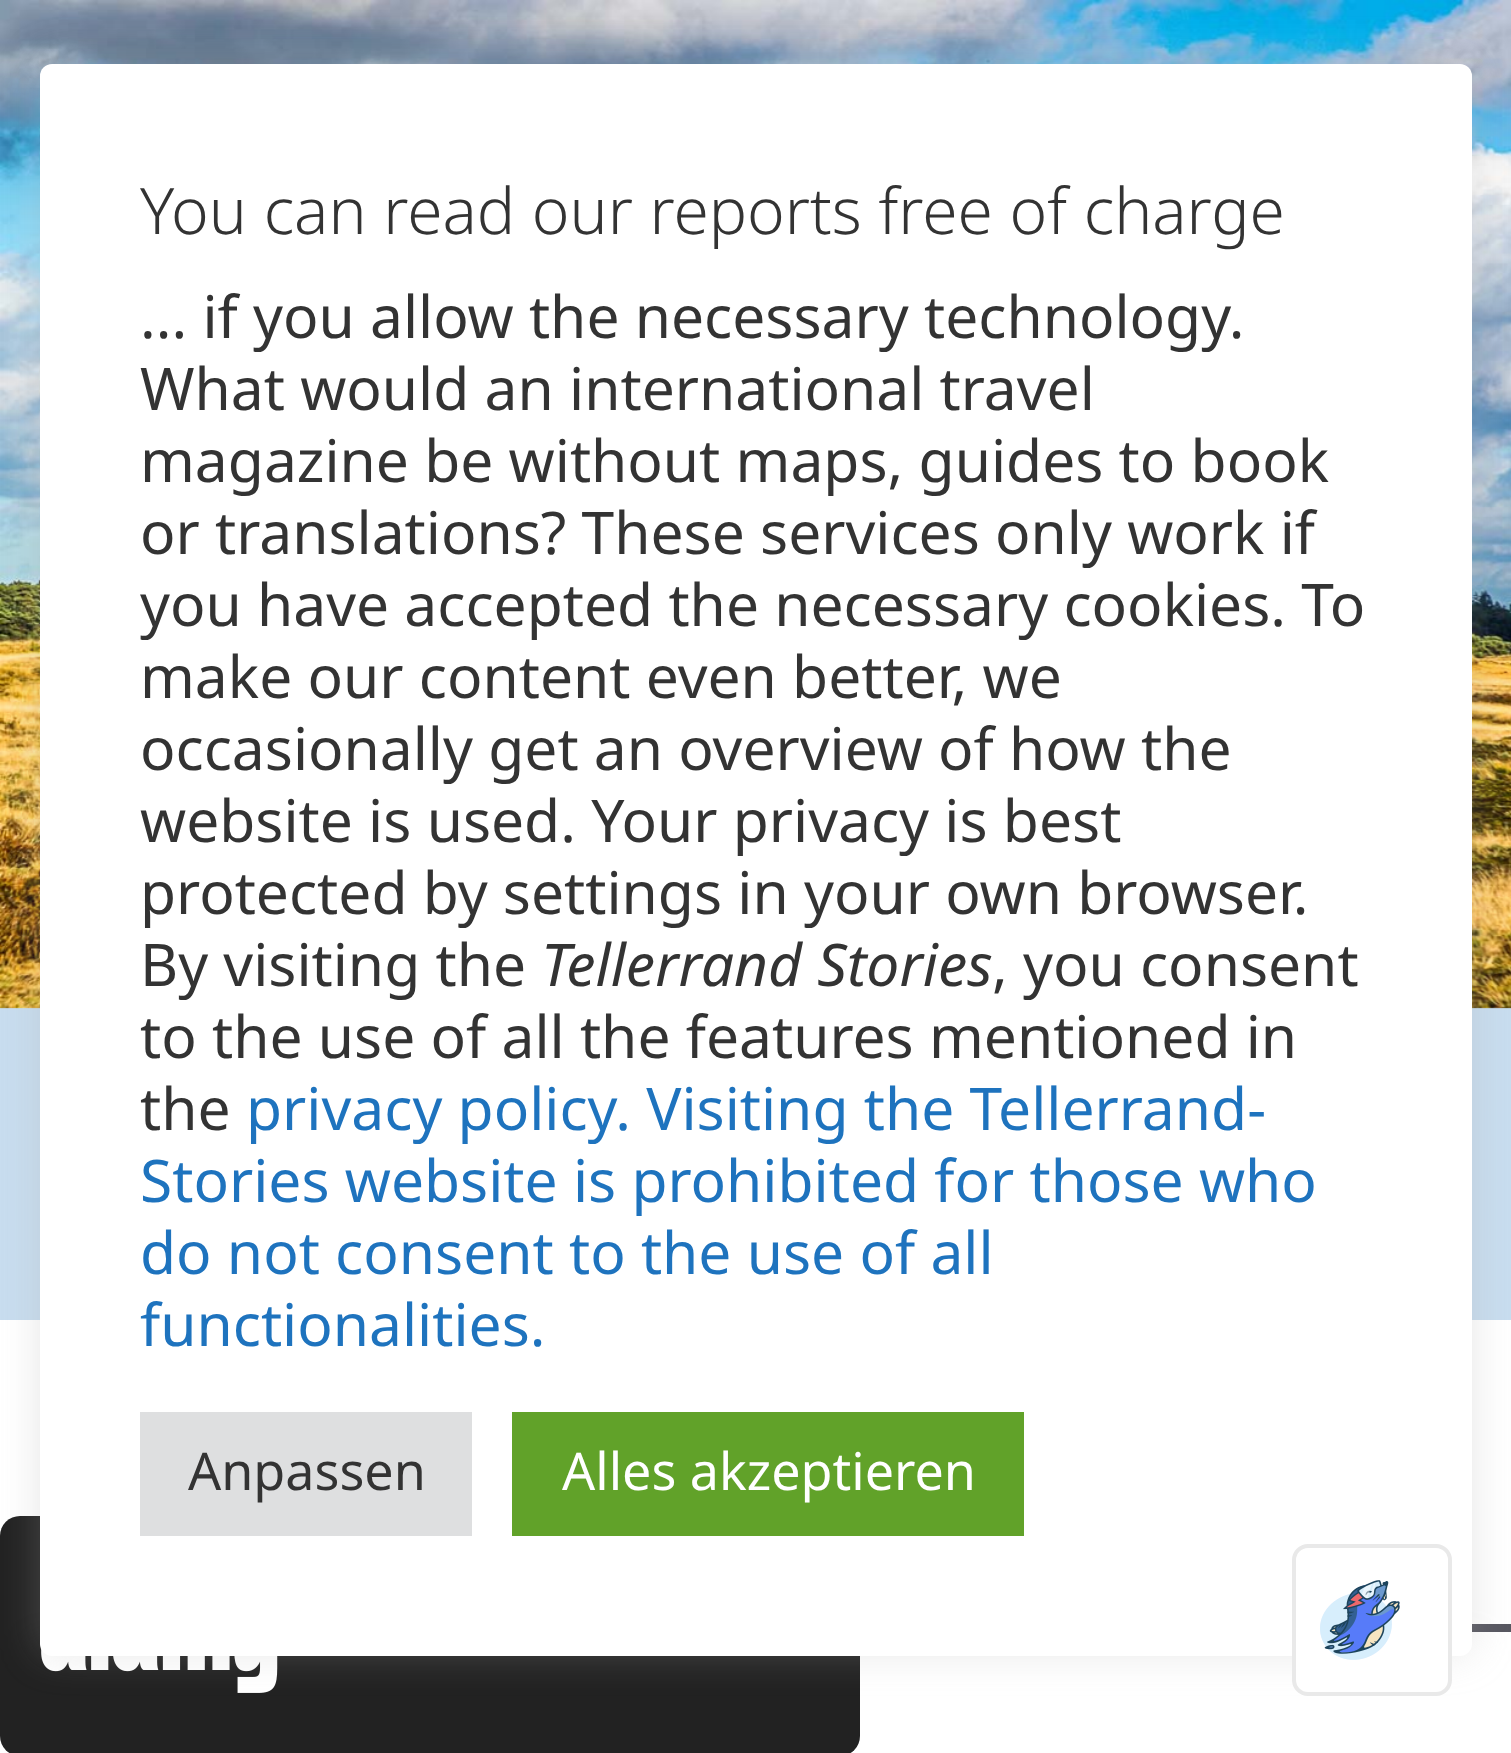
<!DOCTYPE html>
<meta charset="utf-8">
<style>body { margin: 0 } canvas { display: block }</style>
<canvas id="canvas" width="1511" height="1753"></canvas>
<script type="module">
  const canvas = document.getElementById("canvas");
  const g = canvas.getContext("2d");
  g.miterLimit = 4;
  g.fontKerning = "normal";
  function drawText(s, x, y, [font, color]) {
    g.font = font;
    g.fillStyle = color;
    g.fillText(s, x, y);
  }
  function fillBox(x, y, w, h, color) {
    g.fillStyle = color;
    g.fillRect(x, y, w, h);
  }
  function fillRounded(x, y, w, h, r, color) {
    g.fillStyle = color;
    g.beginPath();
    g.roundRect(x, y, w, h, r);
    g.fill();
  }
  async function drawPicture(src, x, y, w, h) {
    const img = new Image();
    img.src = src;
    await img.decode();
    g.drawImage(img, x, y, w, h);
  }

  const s1 = ["300 64px Noto Sans", "#333333"];
  const s2 = ["58.7px Noto Sans", "#333333"];
  const s3 = ["italic 58.7px Noto Sans", "#333333"];
  const s4 = ["58.7px Noto Sans", "#1E73BE"];
  const s5 = ["52px Noto Sans", "#333333"];
  const s6 = ["52px Noto Sans", "#FFFFFF"];

  fillBox(0, 0, 1511, 1753, "#FFFFFF");
  fillBox(0, 1007, 1511, 313, "#C8DDEF");
  await drawPicture("pic1.png", 0, 0, 1511, 1009);
  fillRounded(0, 1516, 860, 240, 20, "#222222");
  await drawPicture("pic2.png", 41, 1648, 237, 45);
  fillBox(1472, 1624, 39, 8, "#575760");
  g.fillStyle = "rgba(172, 171, 171, 0.3)";
  g.filter = "blur(20px)";
  g.beginPath();
  g.roundRect(40, 60, 1432, 1592, 12);
  g.fill();
  g.filter = "none";
  fillRounded(40, 64, 1432, 1592, 12, "#FFFFFF");
  drawText("You can read our reports free of charge", 140, 234, s1);
  drawText("... if you allow the necessary technology.", 140, 338, s2);
  drawText("What would an international travel", 140, 410, s2);
  drawText("magazine be without maps, guides to book", 140, 482, s2);
  drawText("or translations? These services only work if", 140, 554, s2);
  drawText("you have accepted the necessary cookies. To", 140, 626, s2);
  drawText("make our content even better, we", 140, 698, s2);
  drawText("occasionally get an overview of how the", 140, 770, s2);
  drawText("website is used. Your privacy is best", 140, 842, s2);
  drawText("protected by settings in your own browser.", 140, 914, s2);
  drawText("By visiting the", 140, 986, s2);
  drawText("Tellerrand Stories", 541, 986, s3);
  drawText(", you consent", 992, 986, s2);
  drawText("to the use of all the features mentioned in", 140, 1058, s2);
  drawText("the", 140, 1130, s2);
  drawText("privacy policy. Visiting the Tellerrand-", 246, 1130, s4);
  drawText("Stories website is prohibited for those who", 140, 1202, s4);
  drawText("do not consent to the use of all", 140, 1274, s4);
  drawText("functionalities.", 140, 1346, s4);
  fillBox(140, 1412, 332, 124, "#DEDFE0");
  drawText("Anpassen", 188, 1490, s5);
  fillBox(512, 1412, 512, 124, "#61A229");
  drawText("Alles akzeptieren", 562, 1490, s6);
  g.beginPath();
  g.roundRect(1294, 1546, 156, 148, 14);
  g.fill();
  g.strokeStyle = "#E9E9E9";
  g.lineWidth = 4;
  g.stroke();
  await drawPicture("pic3.png", 1320, 1580, 80, 80);
</script>
